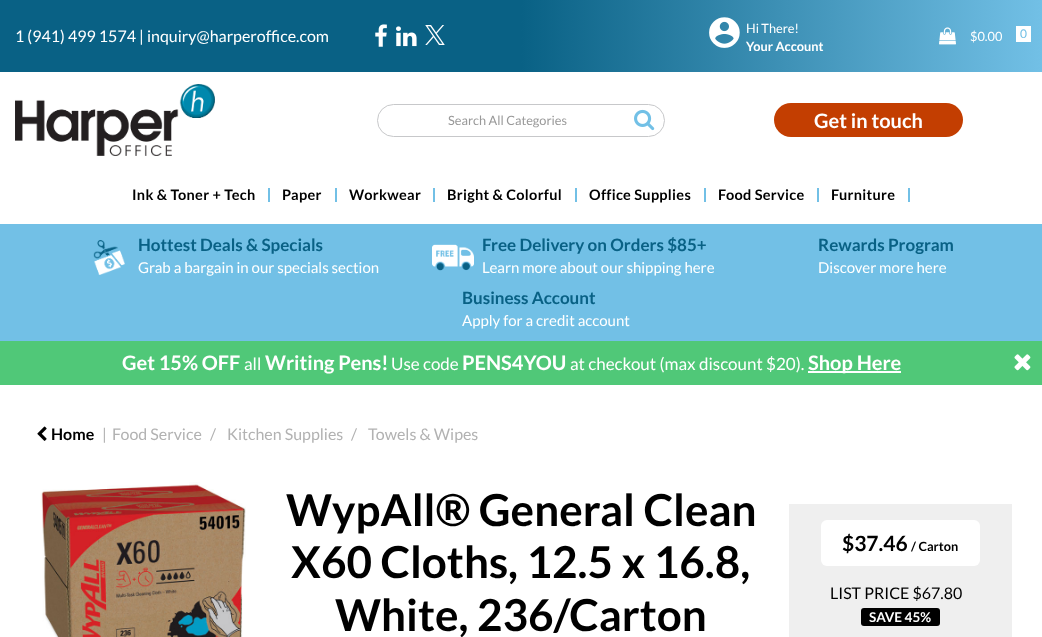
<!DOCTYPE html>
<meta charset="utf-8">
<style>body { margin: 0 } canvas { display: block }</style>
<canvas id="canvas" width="1042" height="637"></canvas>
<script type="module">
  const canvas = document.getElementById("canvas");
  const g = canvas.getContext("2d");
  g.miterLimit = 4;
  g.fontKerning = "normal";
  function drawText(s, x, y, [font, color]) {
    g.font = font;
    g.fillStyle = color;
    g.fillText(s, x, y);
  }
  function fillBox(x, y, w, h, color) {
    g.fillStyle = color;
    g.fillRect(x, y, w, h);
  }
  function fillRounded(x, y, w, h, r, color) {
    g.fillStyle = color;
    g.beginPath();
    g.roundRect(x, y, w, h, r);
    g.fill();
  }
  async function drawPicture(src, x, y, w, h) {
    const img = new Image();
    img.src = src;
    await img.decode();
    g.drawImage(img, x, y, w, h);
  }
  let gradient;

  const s1 = ["16px Lato", "#FFFFFF"];
  const s2 = ["12.75px Lato", "#FFFFFF"];
  const s3 = ["bold 12.75px Lato", "#FFFFFF"];
  const s4 = ["12px Lato", "#72C0E6"];
  const s5 = ["12.75px Lato", "#999999"];
  const s6 = ["bold 20px Lato", "#FFFFFF"];
  const s7 = ["bold 14.5px Lato", "#000000"];
  const s8 = ["bold 17px Lato", "#096185"];
  const s9 = ["15px Lato", "#FFFFFF"];
  const s10 = ["17px Lato", "#FFFFFF"];
  const s11 = ["bold 16px Lato", "#000000"];
  const s12 = ["16px Lato", "#B2B2B2"];
  const s13 = ["bold 44px Lato", "#000000"];
  const s14 = ["bold 21px Lato", "#000000"];
  const s15 = ["bold 12.75px Lato", "#000000"];
  const s16 = ["16px Lato", "#000000"];
  const s17 = ["bold 13.5px Lato", "#FFFFFF"];

  fillBox(0, 0, 1042, 637, "#FFFFFF");
  gradient = g.createLinearGradient(0, 36, 1042, 36);
  gradient.addColorStop(0.5, "#096185");
  gradient.addColorStop(1, "#72C0E6");
  g.fillStyle = gradient;
  g.fillRect(0, 0, 1042, 72);
  drawText("1 (941) 499 1574 | inquiry@harperoffice.com", 15, 42, s1);
  await drawPicture("pic1.png", 375, 24, 12, 23);
  await drawPicture("pic2.png", 396, 26, 21, 21);
  await drawPicture("pic3.png", 425, 25, 20, 20);
  await drawPicture("pic4.png", 709, 17, 31, 31);
  drawText("Hi There!", 746, 33, s2);
  drawText("Your Account", 746, 51, s3);
  await drawPicture("pic5.png", 939, 27, 17, 18);
  drawText("$0.00", 970, 41, s2);
  fillBox(1016, 26, 15, 16, "#FFFFFF");
  drawText("0", 1020, 38, s4);
  await drawPicture("pic6.png", 15, 84, 200, 72);
  g.beginPath();
  g.roundRect(377.5, 104.5, 287, 32, 16);
  g.strokeStyle = "#C7C8CA";
  g.stroke();
  drawText("Search All Categories", 448, 125, s5);
  await drawPicture("pic7.png", 634, 109, 21, 22);
  fillRounded(774, 103, 189, 34, 17, "#C33E01");
  drawText("Get in touch", 814, 128, s6);
  fillBox(268, 188, 2, 14, "#72C0E6");
  g.letterSpacing = "0.3px";
  drawText("Ink & Toner + Tech", 132, 200, s7);
  fillBox(335, 188, 2, 14, "#72C0E6");
  drawText("Paper", 282, 200, s7);
  fillBox(433, 188, 2, 14, "#72C0E6");
  drawText("Workwear", 349, 200, s7);
  fillBox(575, 188, 2, 14, "#72C0E6");
  drawText("Bright & Colorful", 447, 200, s7);
  fillBox(704, 188, 2, 14, "#72C0E6");
  drawText("Office Supplies", 589, 200, s7);
  fillBox(817, 188, 2, 14, "#72C0E6");
  drawText("Food Service", 718, 200, s7);
  fillBox(908, 188, 2, 14, "#72C0E6");
  drawText("Furniture", 831, 200, s7);
  fillBox(0, 224, 1042, 117, "#72C0E6");
  await drawPicture("pic8.png", 93, 240, 32, 35);
  g.letterSpacing = "0px";
  drawText("Hottest Deals & Specials", 138, 251, s8);
  drawText("Grab a bargain in our specials section", 138, 273, s9);
  await drawPicture("pic9.png", 432, 244, 42, 27);
  drawText("Free Delivery on Orders $85+", 482, 251, s8);
  drawText("Learn more about our shipping here", 482, 273, s9);
  drawText("Rewards Program", 818, 251, s8);
  drawText("Discover more here", 818, 273, s9);
  drawText("Business Account", 462, 304, s8);
  drawText("Apply for a credit account", 462, 326, s9);
  fillBox(0, 341, 1042, 44, "#50C878");
  drawText("Get 15% OFF", 122, 370, s6);
  drawText("all", 244, 370, s10);
  drawText("Writing Pens!", 265, 370, s6);
  drawText("Use code", 391, 370, s10);
  drawText("PENS4YOU", 462, 370, s6);
  drawText("at checkout (max discount $20).", 570, 370, s10);
  fillBox(808, 371, 93, 2, "#FFFFFF");
  drawText("Shop Here", 808, 370, s6);
  await drawPicture("pic10.png", 1014, 354, 17, 17);
  await drawPicture("pic11.png", 37, 426, 10, 15);
  drawText("Home", 51, 440, s11);
  drawText("|", 102, 440, s12);
  drawText("Food Service", 112, 440, s12);
  drawText("/", 210, 440, s12);
  drawText("Kitchen Supplies", 227, 440, s12);
  drawText("/", 351, 440, s12);
  drawText("Towels & Wipes", 368, 440, s12);
  await drawPicture("pic12.png", 40, 482, 206, 155);
  drawText("WypAll® General Clean", 286, 526, s13);
  drawText("X60 Cloths, 12.5 x 16.8,", 291, 578, s13);
  drawText("White, 236/Carton", 335, 631, s13);
  fillBox(789, 504, 223, 133, "#EFEFEF");
  fillRounded(821, 520, 159, 46, 6, "#FFFFFF");
  drawText("$37.46", 842, 551, s14);
  drawText("/ Carton", 911, 551, s15);
  drawText("LIST PRICE $67.80", 830, 599, s16);
  g.beginPath();
  g.roundRect(861, 608, 44, 18, [3, 0, 0, 3]);
  g.fill();
  fillBox(905, 608, 16, 18, "#000000");
  g.beginPath();
  g.roundRect(921, 608, 19, 18, [0, 3, 3, 0]);
  g.fill();
  drawText("SAVE 45%", 869, 622, s17);
</script>
